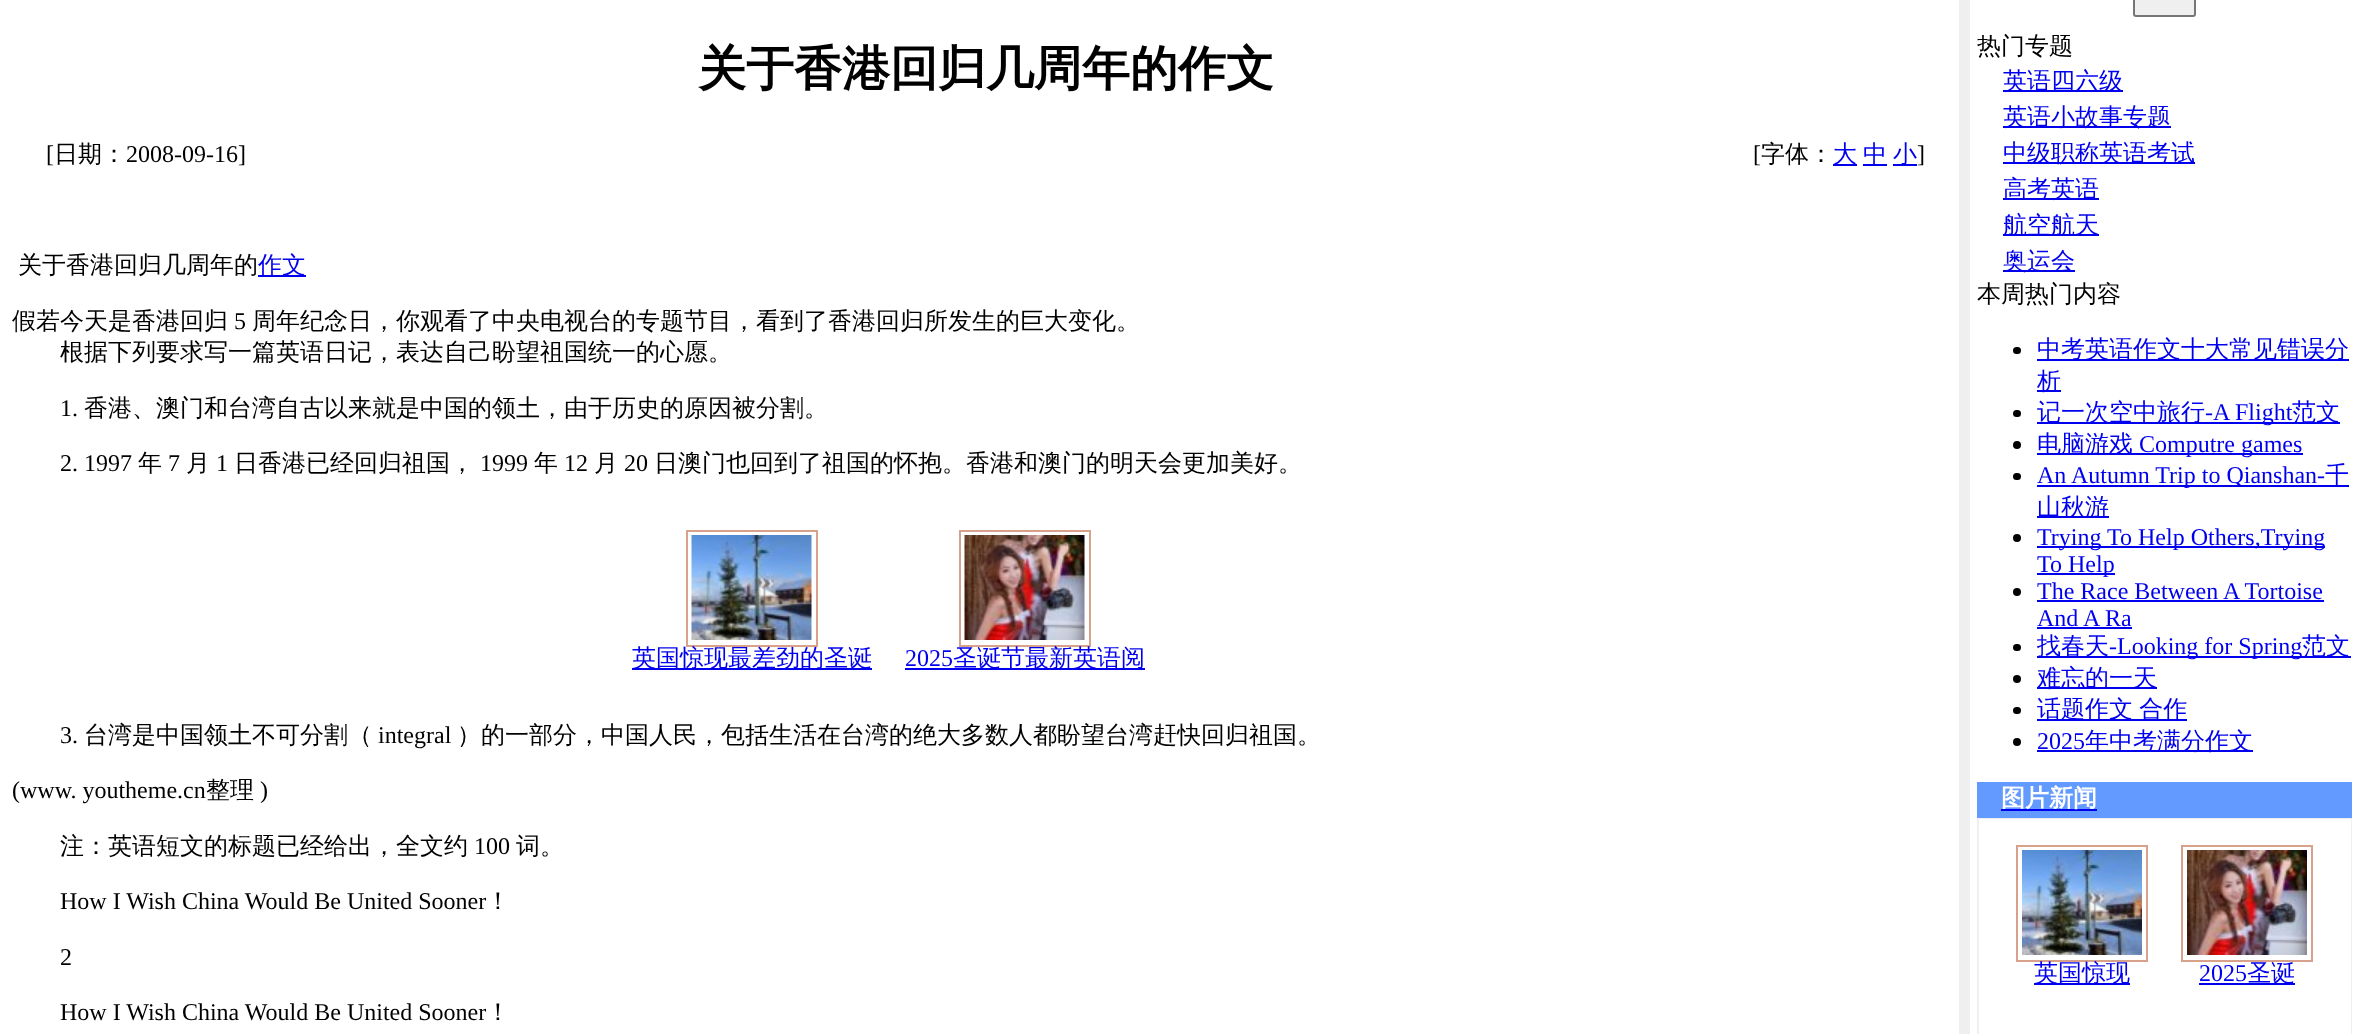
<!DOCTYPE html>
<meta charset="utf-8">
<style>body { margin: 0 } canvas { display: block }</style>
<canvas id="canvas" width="2363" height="1034"></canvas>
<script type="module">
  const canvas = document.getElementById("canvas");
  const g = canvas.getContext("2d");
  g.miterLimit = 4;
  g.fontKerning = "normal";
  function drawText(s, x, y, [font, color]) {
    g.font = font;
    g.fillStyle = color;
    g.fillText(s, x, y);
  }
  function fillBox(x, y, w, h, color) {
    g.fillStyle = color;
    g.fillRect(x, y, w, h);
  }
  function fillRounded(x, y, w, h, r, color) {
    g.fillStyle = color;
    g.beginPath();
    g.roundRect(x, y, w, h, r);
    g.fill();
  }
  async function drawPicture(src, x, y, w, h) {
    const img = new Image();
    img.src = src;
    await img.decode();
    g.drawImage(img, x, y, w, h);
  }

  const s1 = ["bold 48px WenQuanYi Zen Hei", "#000000"];
  const s2 = ["24px Liberation Serif", "#000000"];
  const s3 = ["500 24px WenQuanYi Zen Hei", "#000000"];
  const s4 = ["500 24px WenQuanYi Zen Hei", "#0000EE"];
  const s5 = ["24px Liberation Serif", "#0000EE"];
  const s6 = ["bold 24px WenQuanYi Zen Hei", "#FFFFFF"];

  fillBox(0, 0, 2363, 1034, "#FFFFFF");
  drawText("关于香港回归几周年的作文", 698, 85, s1);
  drawText("[", 46, 162, s2);
  drawText("日期：", 54, 162, s3);
  drawText("2008-09-16]", 126, 162, s2);
  drawText("[", 1753, 162, s2);
  drawText("字体：", 1761, 162, s3);
  fillBox(1833, 164, 24, 2, "#0000EE");
  drawText("大", 1833, 162, s4);
  fillBox(1863, 164, 24, 2, "#0000EE");
  drawText("中", 1863, 162, s4);
  fillBox(1893, 164, 24, 2, "#0000EE");
  drawText("小", 1893, 162, s4);
  drawText("]", 1917, 162, s2);
  drawText("关于香港回归几周年的", 18, 273, s3);
  fillBox(258, 275, 48, 2, "#0000EE");
  drawText("作文", 258, 273, s4);
  drawText("假若今天是香港回归", 12, 329, s3);
  drawText("5", 234, 329, s2);
  drawText("周年纪念日，你观看了中央电视台的专题节目，看到了香港回归所发生的巨大变化。", 252, 329, s3);
  drawText("根据下列要求写一篇英语日记，表达自己盼望祖国统一的心愿。", 60, 360, s3);
  drawText("1.", 60, 416, s2);
  drawText("香港、澳门和台湾自古以来就是中国的领土，由于历史的原因被分割。", 84, 416, s3);
  drawText("2. 1997", 60, 471, s2);
  drawText("年", 138, 471, s3);
  drawText("7", 168, 471, s2);
  drawText("月", 186, 471, s3);
  drawText("1", 216, 471, s2);
  drawText("日香港已经回归祖国，", 234, 471, s3);
  drawText("1999", 480, 471, s2);
  drawText("年", 534, 471, s3);
  drawText("12", 564, 471, s2);
  drawText("月", 594, 471, s3);
  drawText("20", 624, 471, s2);
  drawText("日澳门也回到了祖国的怀抱。香港和澳门的明天会更加美好。", 654, 471, s3);
  g.strokeStyle = "#D8A18B";
  g.lineWidth = 2;
  g.strokeRect(687, 531, 130, 115);
  await drawPicture("pic1.png", 691, 535, 121, 105);
  fillBox(632, 668, 240, 2, "#0000EE");
  drawText("英国惊现最差劲的圣诞", 632, 666, s4);
  g.strokeRect(960, 531, 130, 115);
  await drawPicture("pic2.png", 964, 535, 121, 105);
  drawText("2025", 905, 666, s5);
  fillBox(905, 668, 240, 2, "#0000EE");
  drawText("圣诞节最新英语阅", 953, 666, s4);
  drawText("3.", 60, 743, s2);
  drawText("台湾是中国领土不可分割（", 84, 743, s3);
  drawText("integral", 378, 743, s2);
  drawText("）的一部分，中国人民，包括生活在台湾的绝大多数人都盼望台湾赶快回归祖国。", 457, 743, s3);
  drawText("(www. youtheme.cn", 12, 798, s2);
  drawText("整理", 206, 798, s3);
  drawText(")", 260, 798, s2);
  drawText("注：英语短文的标题已经给出，全文约", 60, 854, s3);
  drawText("100", 474, 854, s2);
  drawText("词。", 516, 854, s3);
  drawText("How I Wish China Would Be United Sooner", 60, 909, s2);
  drawText("！", 486, 909, s3);
  drawText("2", 60, 965, s2);
  drawText("How I Wish China Would Be United Sooner", 60, 1020, s2);
  drawText("！", 486, 1020, s3);
  fillBox(1959, 0, 11, 1034, "#EFEFEF");
  g.beginPath();
  g.roundRect(2134, -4, 61, 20, 2);
  g.fill();
  g.strokeStyle = "#767676";
  g.stroke();
  drawText("热门专题", 1977, 54, s3);
  fillBox(2003, 90, 120, 2, "#0000EE");
  drawText("英语四六级", 2003, 89, s4);
  fillBox(2003, 126, 168, 2, "#0000EE");
  drawText("英语小故事专题", 2003, 125, s4);
  fillBox(2003, 162, 192, 2, "#0000EE");
  drawText("中级职称英语考试", 2003, 161, s4);
  fillBox(2003, 198, 96, 2, "#0000EE");
  drawText("高考英语", 2003, 197, s4);
  fillBox(2003, 234, 96, 2, "#0000EE");
  drawText("航空航天", 2003, 233, s4);
  fillBox(2003, 270, 72, 2, "#0000EE");
  drawText("奥运会", 2003, 269, s4);
  drawText("本周热门内容", 1977, 302, s3);
  fillRounded(2013, 347, 8, 7, 3.5, "#000000");
  fillBox(2037, 359, 312, 2, "#0000EE");
  drawText("中考英语作文十大常见错误分", 2037, 357, s4);
  fillBox(2037, 390, 24, 2, "#0000EE");
  drawText("析", 2037, 389, s4);
  fillRounded(2013, 410, 8, 7, 3.5, "#000000");
  fillBox(2037, 422, 303, 2, "#0000EE");
  drawText("记一次空中旅行", 2037, 420, s4);
  drawText("-A Flight", 2205, 420, s5);
  drawText("范文", 2292, 420, s4);
  g.fillStyle = "#000000";
  g.beginPath();
  g.arc(2017, 445, 4, 0, Math.PI * 2);
  g.fill();
  fillBox(2037, 453, 266, 2, "#0000EE");
  drawText("电脑游戏", 2037, 452, s4);
  drawText("Computre games", 2139, 452, s5);
  fillRounded(2013, 473, 8, 7, 3.5, "#000000");
  fillBox(2037, 485, 312, 2, "#0000EE");
  drawText("An Autumn Trip to Qianshan-", 2037, 483, s5);
  drawText("千", 2325, 483, s4);
  fillBox(2037, 516, 72, 2, "#0000EE");
  drawText("山秋游", 2037, 515, s4);
  g.fillStyle = "#000000";
  g.beginPath();
  g.arc(2017, 538, 4, 0, Math.PI * 2);
  g.fill();
  fillBox(2037, 546, 288, 2, "#0000EE");
  drawText("Trying To Help Others,Trying", 2037, 545, s5);
  fillBox(2037, 573, 78, 2, "#0000EE");
  drawText("To Help", 2037, 572, s5);
  g.fillStyle = "#000000";
  g.beginPath();
  g.arc(2017, 592, 4, 0, Math.PI * 2);
  g.fill();
  drawText("The Race Between A Tortoise", 2037, 599, s5);
  fillBox(2037, 600, 287, 2, "#0000EE");
  drawText("And A Ra", 2037, 626, s5);
  fillBox(2037, 627, 95, 2, "#0000EE");
  fillRounded(2013, 644, 8, 7, 3.5, "#000000");
  fillBox(2037, 656, 314, 2, "#0000EE");
  drawText("找春天", 2037, 654, s4);
  drawText("-Looking for Spring", 2109, 654, s5);
  drawText("范文", 2302, 654, s4);
  g.fillStyle = "#000000";
  g.beginPath();
  g.arc(2017, 679, 4, 0, Math.PI * 2);
  g.fill();
  fillBox(2037, 687, 120, 2, "#0000EE");
  drawText("难忘的一天", 2037, 686, s4);
  fillRounded(2013, 707, 8, 7, 3.5, "#000000");
  fillBox(2037, 719, 150, 2, "#0000EE");
  g.wordSpacing = "-1px";
  drawText("话题作文 合作", 2037, 717, s4);
  g.fillStyle = "#000000";
  g.beginPath();
  g.arc(2017, 742, 4, 0, Math.PI * 2);
  g.fill();
  g.wordSpacing = "0px";
  drawText("2025", 2037, 749, s5);
  fillBox(2037, 750, 216, 2, "#0000EE");
  drawText("年中考满分作文", 2085, 749, s4);
  fillBox(1977, 782, 375, 36, "#639AFF");
  fillBox(2001, 809, 96, 2, "#0000EE");
  drawText("图片新闻", 2001, 806, s6);
  fillBox(1977, 818, 375, 216, "#EFEFEF");
  fillBox(1979, 819, 372, 215, "#FFFFFF");
  g.strokeStyle = "#D8A18B";
  g.strokeRect(2017, 846, 130, 115);
  await drawPicture("pic3.png", 2022, 850, 120, 105);
  fillBox(2034, 983, 96, 2, "#0000EE");
  drawText("英国惊现", 2034, 981, s4);
  g.strokeRect(2182, 846, 130, 115);
  await drawPicture("pic4.png", 2187, 850, 120, 105);
  drawText("2025", 2199, 981, s5);
  fillBox(2199, 983, 96, 2, "#0000EE");
  drawText("圣诞", 2247, 981, s4);
</script>
